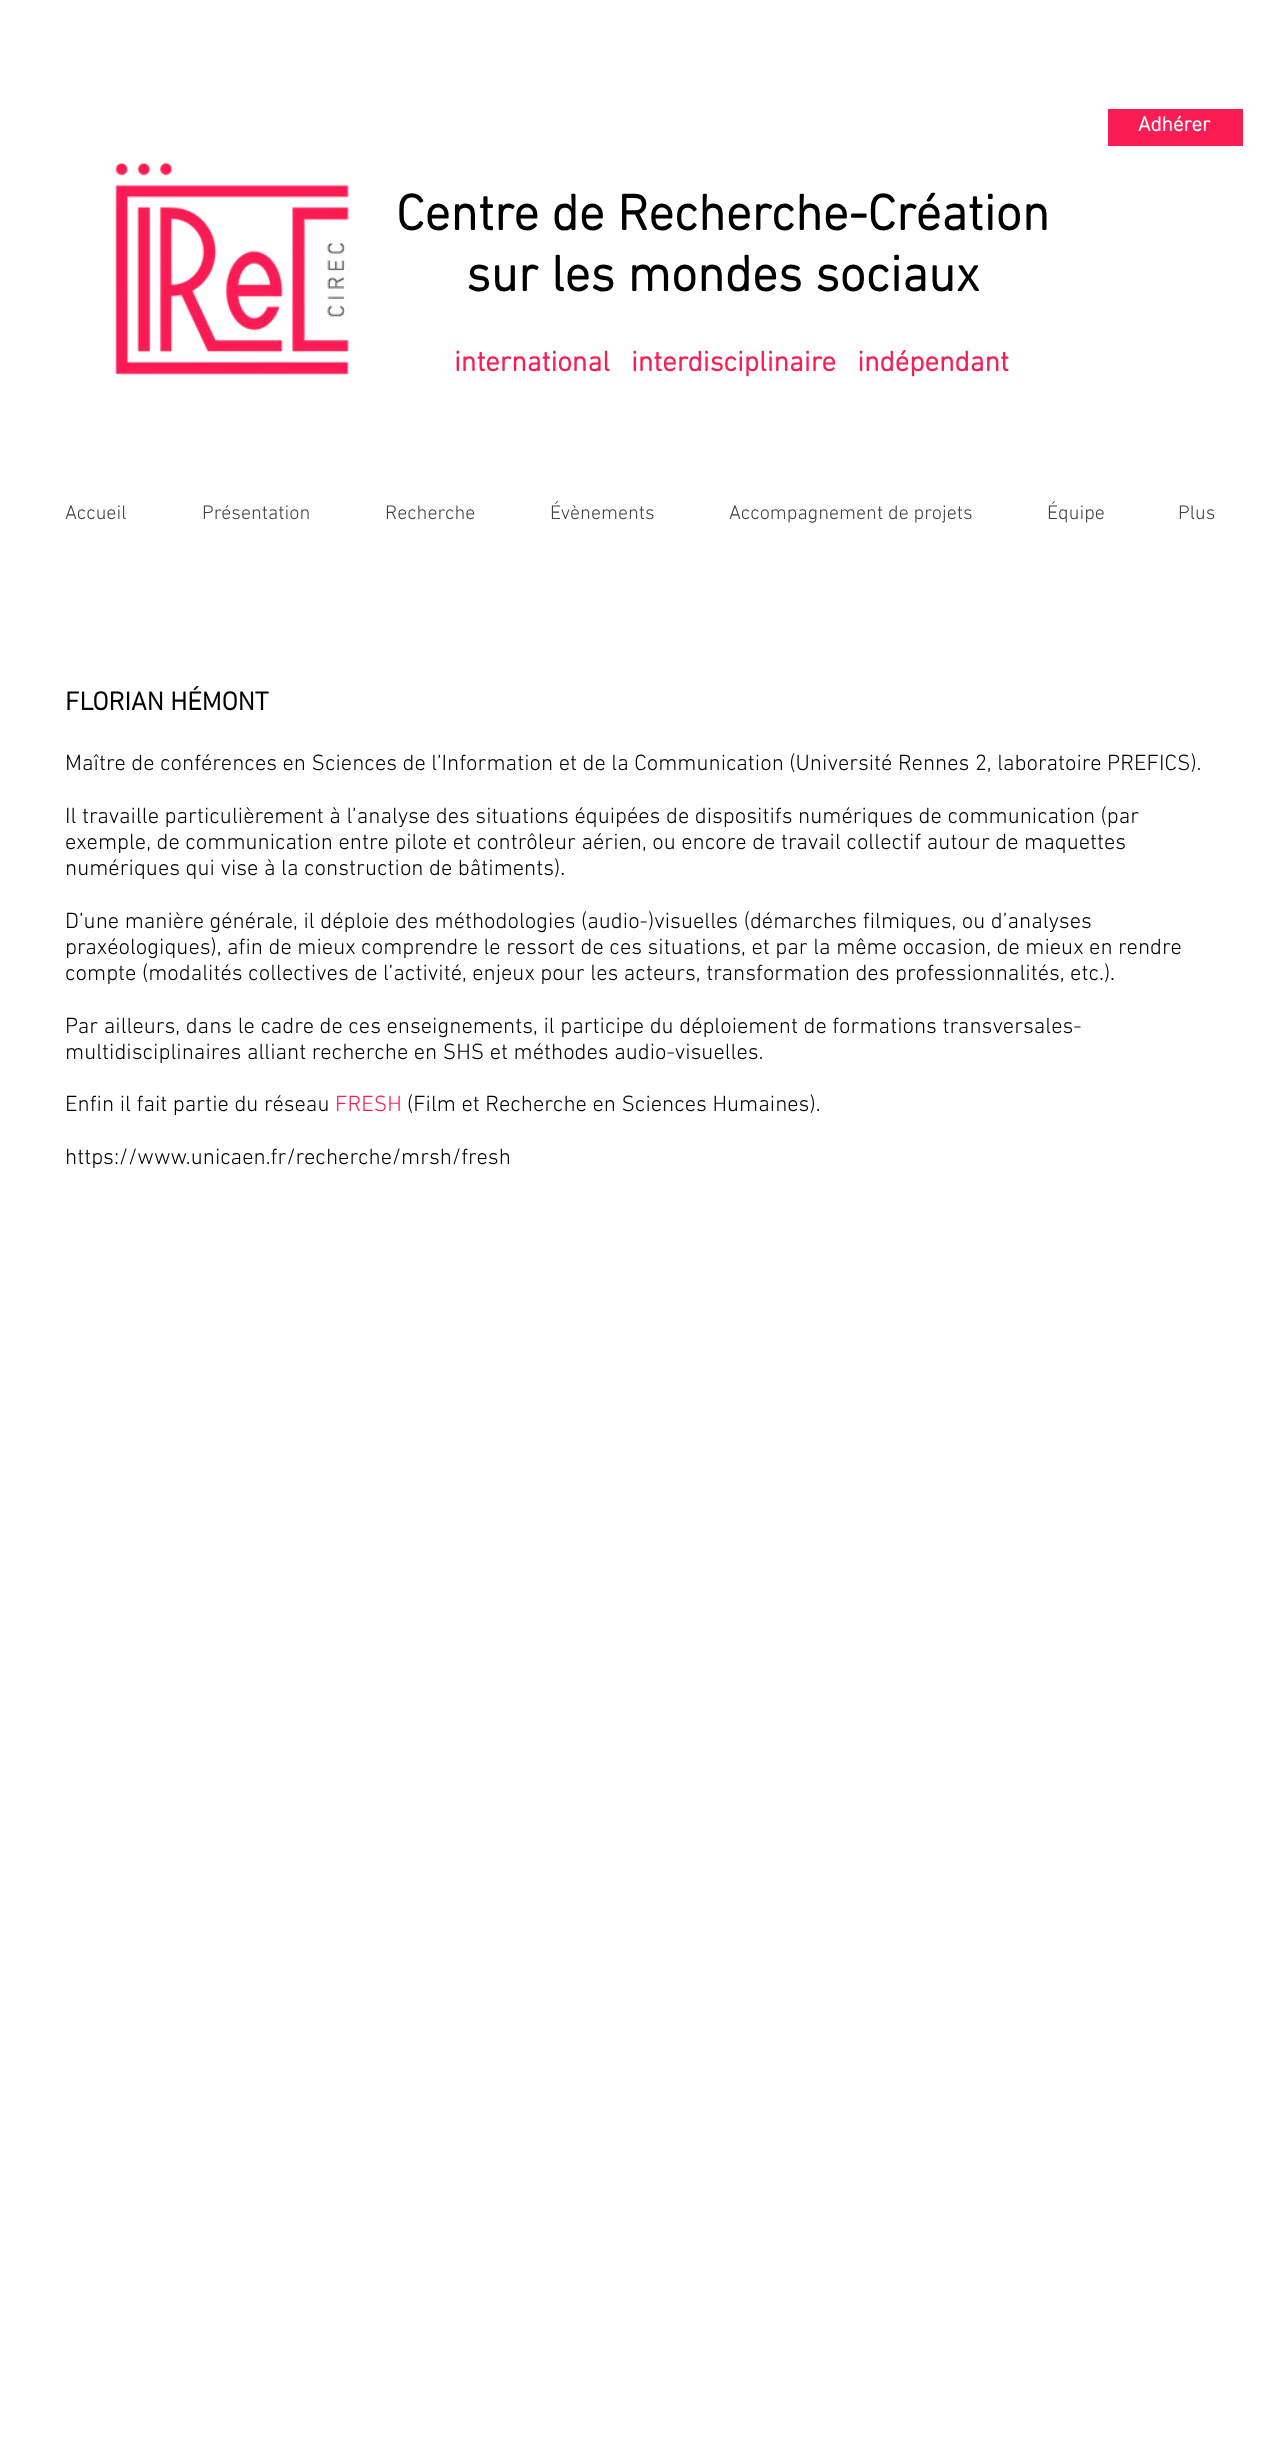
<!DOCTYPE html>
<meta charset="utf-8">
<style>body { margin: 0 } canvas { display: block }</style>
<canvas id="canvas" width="1279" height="2460"></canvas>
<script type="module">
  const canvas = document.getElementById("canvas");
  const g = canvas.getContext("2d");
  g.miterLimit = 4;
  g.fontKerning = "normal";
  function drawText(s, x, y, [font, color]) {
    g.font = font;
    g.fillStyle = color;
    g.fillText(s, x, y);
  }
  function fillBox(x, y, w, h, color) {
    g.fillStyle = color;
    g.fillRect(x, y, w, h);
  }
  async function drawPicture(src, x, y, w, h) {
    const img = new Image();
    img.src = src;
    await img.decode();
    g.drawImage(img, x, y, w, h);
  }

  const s1 = ["bold 21px 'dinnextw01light'", "#FFFFFF"];
  const s2 = ["bold 51.25px 'dinnextw01light'", "#000000"];
  const s3 = ["bold 28.75px 'dinnextw01light'", "#FC1C54"];
  const s4 = ["300 20px 'dinnextw01light'", "#404040"];
  const s5 = ["bold 26.25px 'dinnextw01light'", "#000000"];
  const s6 = ["300 22.5px 'dinnextw01light'", "#000000"];
  const s7 = ["300 22.5px 'dinnextw01light'", "#FC1C54"];

  fillBox(0, 0, 1279, 2460, "#FFFFFF");
  fillBox(1108, 109, 135, 37, "#FC1C54");
  drawText("Adhérer", 1138, 131, s1);
  await drawPicture("pic2.png", 327, 242, 18, 75);
  await drawPicture("pic1.png", 115, 162, 234, 213);
  drawText("Centre de Recherche-Création", 396, 230, s2);
  drawText("sur les mondes sociaux", 466, 291, s2);
  drawText("international   interdisciplinaire   indépendant", 454, 371, s3);
  drawText("Accueil", 65, 519, s4);
  drawText("Présentation", 202, 519, s4);
  drawText("Recherche", 385, 519, s4);
  drawText("Évènements", 550, 519, s4);
  drawText("Accompagnement de projets", 729, 519, s4);
  drawText("Équipe", 1047, 519, s4);
  drawText("Plus", 1178, 519, s4);
  drawText("FLORIAN HÉMONT", 65, 710, s5);
  drawText("Maître de conférences en Sciences de l’Information et de la Communication (Université Rennes 2, laboratoire PREFICS).", 65, 770, s6);
  drawText("Il travaille particulièrement à l’analyse des situations équipées de dispositifs numériques de communication (par", 65, 823, s6);
  drawText("exemple, de communication entre pilote et contrôleur aérien, ou encore de travail collectif autour de maquettes", 65, 849, s6);
  drawText("numériques qui vise à la construction de bâtiments).", 65, 875, s6);
  drawText("D’une manière générale, il déploie des méthodologies (audio-)visuelles (démarches filmiques, ou d’analyses", 65, 928, s6);
  drawText("praxéologiques), afin de mieux comprendre le ressort de ces situations, et par la même occasion, de mieux en rendre", 65, 954, s6);
  drawText("compte (modalités collectives de l’activité, enjeux pour les acteurs, transformation des professionnalités, etc.).", 65, 980, s6);
  drawText("Par ailleurs, dans le cadre de ces enseignements, il participe du déploiement de formations transversales-", 65, 1033, s6);
  drawText("multidisciplinaires alliant recherche en SHS et méthodes audio-visuelles.", 65, 1059, s6);
  drawText("Enfin il fait partie du réseau", 65, 1111, s6);
  drawText("FRESH", 335, 1111, s7);
  drawText("(Film et Recherche en Sciences Humaines).", 407, 1111, s6);
  drawText("https://www.unicaen.fr/recherche/mrsh/fresh", 65, 1164, s6);
</script>
